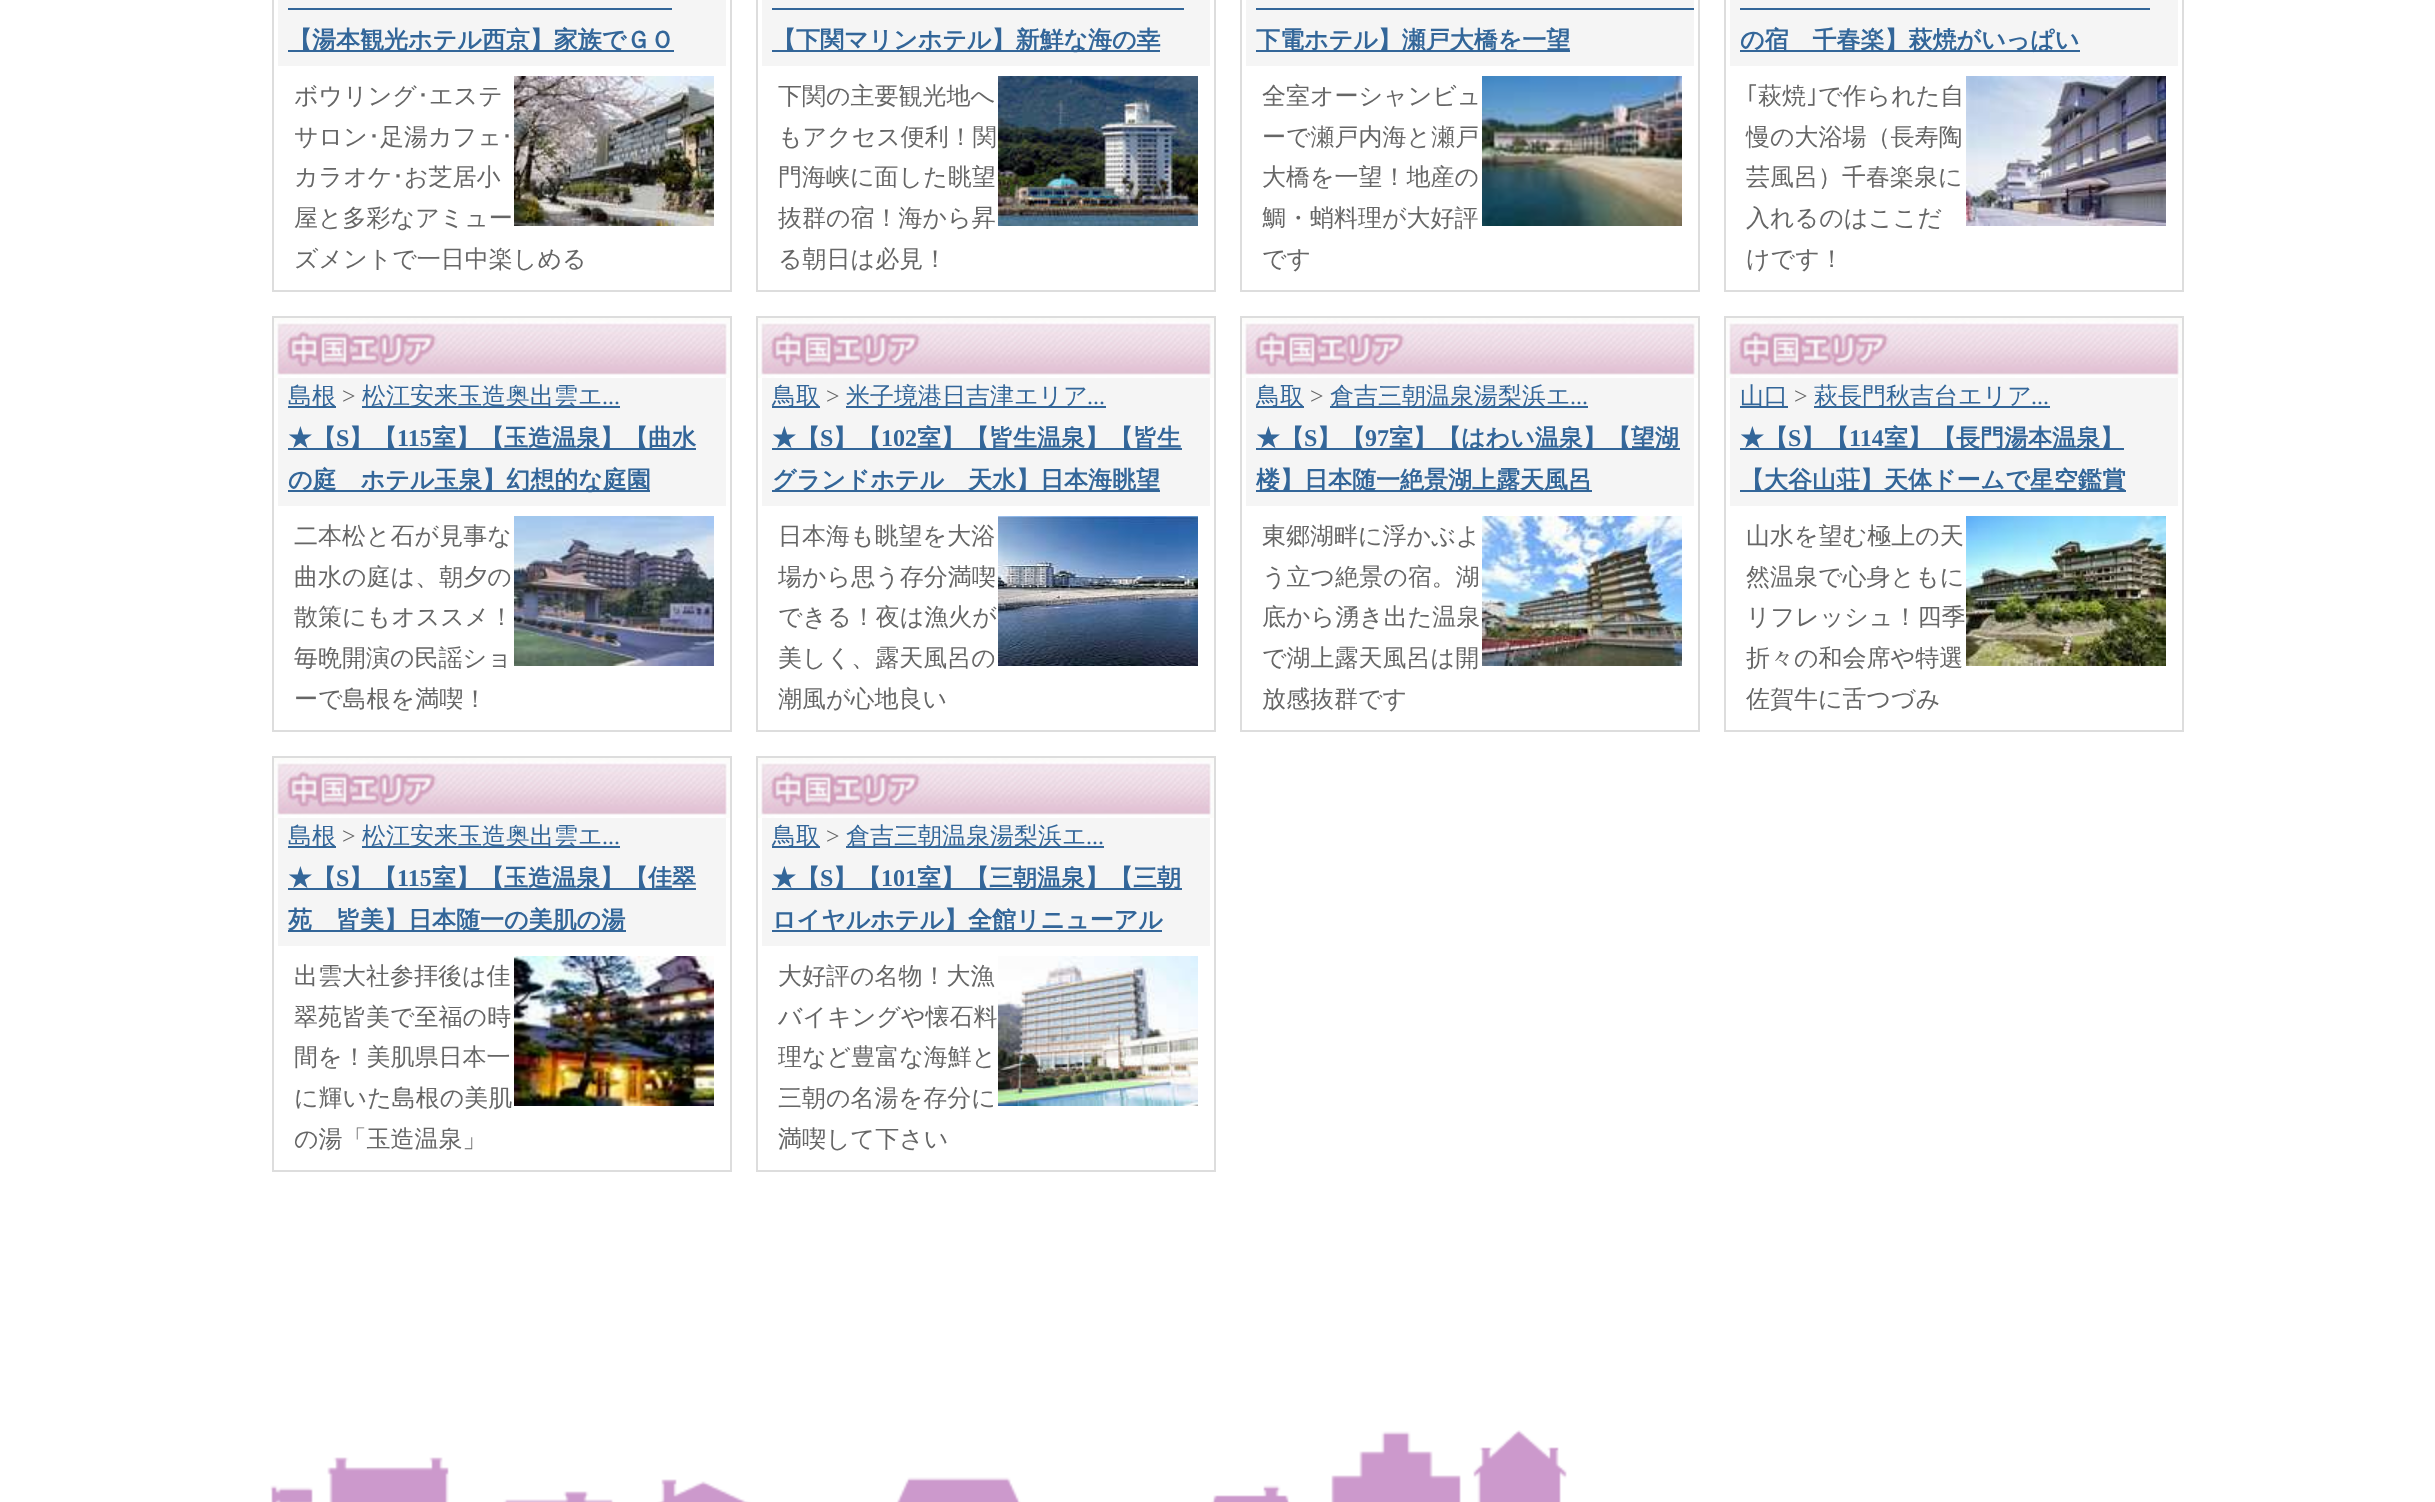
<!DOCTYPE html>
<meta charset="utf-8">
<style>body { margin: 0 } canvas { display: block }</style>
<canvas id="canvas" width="2435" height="1502"></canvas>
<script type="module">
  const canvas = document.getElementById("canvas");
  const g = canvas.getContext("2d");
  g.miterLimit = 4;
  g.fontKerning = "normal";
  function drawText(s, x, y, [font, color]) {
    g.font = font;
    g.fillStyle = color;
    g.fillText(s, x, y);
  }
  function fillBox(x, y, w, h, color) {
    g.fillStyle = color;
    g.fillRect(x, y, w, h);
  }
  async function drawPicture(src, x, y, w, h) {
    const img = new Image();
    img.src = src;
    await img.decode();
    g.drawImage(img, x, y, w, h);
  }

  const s1 = ["bold 24px WenQuanYi Zen Hei", "#336699"];
  const s2 = ["500 24px WenQuanYi Zen Hei", "#666666"];
  const s3 = ["24px IPAPGothic", "#666666"];
  const s4 = ["500 24px WenQuanYi Zen Hei", "#336699"];
  const s5 = ["24px Liberation Serif", "#666666"];
  const s6 = ["24px Liberation Serif", "#336699"];
  const s7 = ["bold 24px Liberation Serif", "#336699"];

  fillBox(0, 0, 2435, 1502, "#FFFFFF");
  g.strokeStyle = "#DDDDDD";
  g.lineWidth = 2;
  g.strokeRect(273, -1, 458, 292);
  fillBox(278, 0, 448, 66, "#F5F5F5");
  fillBox(288, 50, 386, 2, "#336699");
  drawText("【湯本観光ホテル西京】家族でＧＯ", 288, 48, s1);
  fillBox(288, 8, 384, 2, "#336699");
  drawText("ボウリング", 294, 104, s2);
  drawText("･", 417, 104, s3);
  drawText("エステ", 429, 104, s2);
  drawText("サロン", 294, 145, s2);
  drawText("･", 368, 145, s3);
  drawText("足湯カフェ", 380, 145, s2);
  drawText("･", 501, 145, s3);
  drawText("カラオケ", 294, 185, s2);
  drawText("･", 392, 185, s3);
  drawText("お芝居小", 404, 185, s2);
  drawText("屋と多彩なアミュー", 294, 226, s2);
  drawText("ズメントで一日中楽しめる", 294, 267, s2);
  await drawPicture("pic1.png", 514, 76, 200, 150);
  g.strokeRect(757, -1, 458, 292);
  fillBox(762, 0, 448, 66, "#F5F5F5");
  fillBox(772, 50, 388, 2, "#336699");
  drawText("【下関マリンホテル】新鮮な海の幸", 772, 48, s1);
  fillBox(772, 8, 412, 2, "#336699");
  drawText("下関の主要観光地へ", 778, 104, s2);
  drawText("もアクセス便利！関", 778, 145, s2);
  drawText("門海峡に面した眺望", 778, 185, s2);
  drawText("抜群の宿！海から昇", 778, 226, s2);
  drawText("る朝日は必見！", 778, 267, s2);
  await drawPicture("pic2.png", 998, 76, 200, 150);
  g.strokeRect(1241, -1, 458, 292);
  fillBox(1246, 0, 448, 66, "#F5F5F5");
  fillBox(1256, 50, 314, 2, "#336699");
  drawText("下電ホテル】瀬戸大橋を一望", 1256, 48, s1);
  fillBox(1256, 8, 438, 2, "#336699");
  drawText("全室オーシャンビュ", 1262, 104, s2);
  drawText("ーで瀬戸内海と瀬戸", 1262, 145, s2);
  drawText("大橋を一望！地産の", 1262, 185, s2);
  drawText("鯛・蛸料理が大好評", 1262, 226, s2);
  drawText("です", 1262, 267, s2);
  await drawPicture("pic3.png", 1482, 76, 200, 150);
  g.strokeRect(1725, -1, 458, 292);
  fillBox(1730, 0, 448, 66, "#F5F5F5");
  fillBox(1740, 50, 340, 2, "#336699");
  drawText("の宿　千春楽】萩焼がいっぱい", 1740, 48, s1);
  fillBox(1740, 8, 410, 2, "#336699");
  drawText("｢", 1746, 104, s3);
  drawText("萩焼", 1758, 104, s2);
  drawText("｣", 1806, 104, s3);
  drawText("で作られた自", 1818, 104, s2);
  drawText("慢の大浴場（長寿陶", 1746, 145, s2);
  drawText("芸風呂）千春楽泉に", 1746, 185, s2);
  drawText("入れるのはここだ", 1746, 226, s2);
  drawText("けです！", 1746, 267, s2);
  await drawPicture("pic4.png", 1966, 76, 200, 150);
  g.strokeRect(273, 317, 458, 414);
  await drawPicture("pic5.png", 274, 318, 456, 60);
  fillBox(278, 378, 448, 128, "#F5F5F5");
  fillBox(288, 406, 48, 2, "#336699");
  drawText("島根", 288, 404, s4);
  drawText(">", 342, 404, s5);
  fillBox(362, 406, 258, 2, "#336699");
  drawText("松江安来玉造奥出雲エ", 362, 404, s4);
  drawText("...", 602, 404, s6);
  fillBox(288, 448, 408, 2, "#336699");
  drawText("★【", 288, 446, s1);
  drawText("S", 336, 446, s7);
  drawText("】【", 349, 446, s1);
  drawText("115", 397, 446, s7);
  drawText("室】【玉造温泉】【曲水", 432, 446, s1);
  fillBox(288, 490, 362, 2, "#336699");
  drawText("の庭　ホテル玉泉】幻想的な庭園", 288, 488, s1);
  drawText("二本松と石が見事な", 294, 544, s2);
  drawText("曲水の庭は、朝夕の", 294, 585, s2);
  drawText("散策にもオススメ！", 294, 625, s2);
  drawText("毎晩開演の民謡ショ", 294, 666, s2);
  drawText("ーで島根を満喫！", 294, 707, s2);
  await drawPicture("pic6.png", 514, 516, 200, 150);
  g.strokeRect(757, 317, 458, 414);
  await drawPicture("pic5.png", 758, 318, 456, 60);
  fillBox(762, 378, 448, 128, "#F5F5F5");
  fillBox(772, 406, 48, 2, "#336699");
  drawText("鳥取", 772, 404, s4);
  drawText(">", 826, 404, s5);
  fillBox(846, 406, 260, 2, "#336699");
  drawText("米子境港日吉津エリア", 846, 404, s4);
  drawText("...", 1087, 404, s6);
  fillBox(772, 448, 410, 2, "#336699");
  drawText("★【", 772, 446, s1);
  drawText("S", 820, 446, s7);
  drawText("】【", 833, 446, s1);
  drawText("102", 881, 446, s7);
  drawText("室】【皆生温泉】【皆生", 917, 446, s1);
  fillBox(772, 490, 388, 2, "#336699");
  drawText("グランドホテル　天水】日本海眺望", 772, 488, s1);
  drawText("日本海も眺望を大浴", 778, 544, s2);
  drawText("場から思う存分満喫", 778, 585, s2);
  drawText("できる！夜は漁火が", 778, 625, s2);
  drawText("美しく、露天風呂の", 778, 666, s2);
  drawText("潮風が心地良い", 778, 707, s2);
  await drawPicture("pic7.png", 998, 516, 200, 150);
  g.strokeRect(1241, 317, 458, 414);
  await drawPicture("pic5.png", 1242, 318, 456, 60);
  fillBox(1246, 378, 448, 128, "#F5F5F5");
  fillBox(1256, 406, 48, 2, "#336699");
  drawText("鳥取", 1256, 404, s4);
  drawText(">", 1310, 404, s5);
  fillBox(1330, 406, 258, 2, "#336699");
  drawText("倉吉三朝温泉湯梨浜エ", 1330, 404, s4);
  drawText("...", 1570, 404, s6);
  fillBox(1256, 448, 424, 2, "#336699");
  drawText("★【", 1256, 446, s1);
  drawText("S", 1304, 446, s7);
  drawText("】【", 1317, 446, s1);
  drawText("97", 1365, 446, s7);
  drawText("室】【はわい温泉】【望湖", 1389, 446, s1);
  fillBox(1256, 490, 336, 2, "#336699");
  drawText("楼】日本随一絶景湖上露天風呂", 1256, 488, s1);
  drawText("東郷湖畔に浮かぶよ", 1262, 544, s2);
  drawText("う立つ絶景の宿。湖", 1262, 585, s2);
  drawText("底から湧き出た温泉", 1262, 625, s2);
  drawText("で湖上露天風呂は開", 1262, 666, s2);
  drawText("放感抜群です", 1262, 707, s2);
  await drawPicture("pic8.png", 1482, 516, 200, 150);
  g.strokeRect(1725, 317, 458, 414);
  await drawPicture("pic5.png", 1726, 318, 456, 60);
  fillBox(1730, 378, 448, 128, "#F5F5F5");
  fillBox(1740, 406, 48, 2, "#336699");
  drawText("山口", 1740, 404, s4);
  drawText(">", 1794, 404, s5);
  fillBox(1814, 406, 236, 2, "#336699");
  drawText("萩長門秋吉台エリア", 1814, 404, s4);
  drawText("...", 2031, 404, s6);
  fillBox(1740, 448, 384, 2, "#336699");
  drawText("★【", 1740, 446, s1);
  drawText("S", 1788, 446, s7);
  drawText("】【", 1801, 446, s1);
  drawText("114", 1849, 446, s7);
  drawText("室】【長門湯本温泉】", 1884, 446, s1);
  fillBox(1740, 490, 386, 2, "#336699");
  drawText("【大谷山荘】天体ドームで星空鑑賞", 1740, 488, s1);
  drawText("山水を望む極上の天", 1746, 544, s2);
  drawText("然温泉で心身ともに", 1746, 585, s2);
  drawText("リフレッシュ！四季", 1746, 625, s2);
  drawText("折々の和会席や特選", 1746, 666, s2);
  drawText("佐賀牛に舌つづみ", 1746, 707, s2);
  await drawPicture("pic9.png", 1966, 516, 200, 150);
  g.strokeRect(273, 757, 458, 414);
  await drawPicture("pic5.png", 274, 758, 456, 60);
  fillBox(278, 818, 448, 128, "#F5F5F5");
  fillBox(288, 846, 48, 2, "#336699");
  drawText("島根", 288, 844, s4);
  drawText(">", 342, 844, s5);
  fillBox(362, 846, 258, 2, "#336699");
  drawText("松江安来玉造奥出雲エ", 362, 844, s4);
  drawText("...", 602, 844, s6);
  fillBox(288, 888, 408, 2, "#336699");
  drawText("★【", 288, 886, s1);
  drawText("S", 336, 886, s7);
  drawText("】【", 349, 886, s1);
  drawText("115", 397, 886, s7);
  drawText("室】【玉造温泉】【佳翠", 432, 886, s1);
  fillBox(288, 930, 338, 2, "#336699");
  drawText("苑　皆美】日本随一の美肌の湯", 288, 928, s1);
  drawText("出雲大社参拝後は佳", 294, 984, s2);
  drawText("翠苑皆美で至福の時", 294, 1025, s2);
  drawText("間を！美肌県日本一", 294, 1065, s2);
  drawText("に輝いた島根の美肌", 294, 1106, s2);
  drawText("の湯「玉造温泉」", 294, 1147, s2);
  await drawPicture("pic10.png", 514, 956, 200, 150);
  g.strokeRect(757, 757, 458, 414);
  await drawPicture("pic5.png", 758, 758, 456, 60);
  fillBox(762, 818, 448, 128, "#F5F5F5");
  fillBox(772, 846, 48, 2, "#336699");
  drawText("鳥取", 772, 844, s4);
  drawText(">", 826, 844, s5);
  fillBox(846, 846, 258, 2, "#336699");
  drawText("倉吉三朝温泉湯梨浜エ", 846, 844, s4);
  drawText("...", 1086, 844, s6);
  fillBox(772, 888, 410, 2, "#336699");
  drawText("★【", 772, 886, s1);
  drawText("S", 820, 886, s7);
  drawText("】【", 833, 886, s1);
  drawText("101", 881, 886, s7);
  drawText("室】【三朝温泉】【三朝", 917, 886, s1);
  fillBox(772, 930, 390, 2, "#336699");
  drawText("ロイヤルホテル】全館リニューアル", 772, 928, s1);
  drawText("大好評の名物！大漁", 778, 984, s2);
  drawText("バイキングや懐石料", 778, 1025, s2);
  drawText("理など豊富な海鮮と", 778, 1065, s2);
  drawText("三朝の名湯を存分に", 778, 1106, s2);
  drawText("満喫して下さい", 778, 1147, s2);
  await drawPicture("pic11.png", 998, 956, 200, 150);
  await drawPicture("pic12.png", 270, 1430, 1297, 72);
</script>
